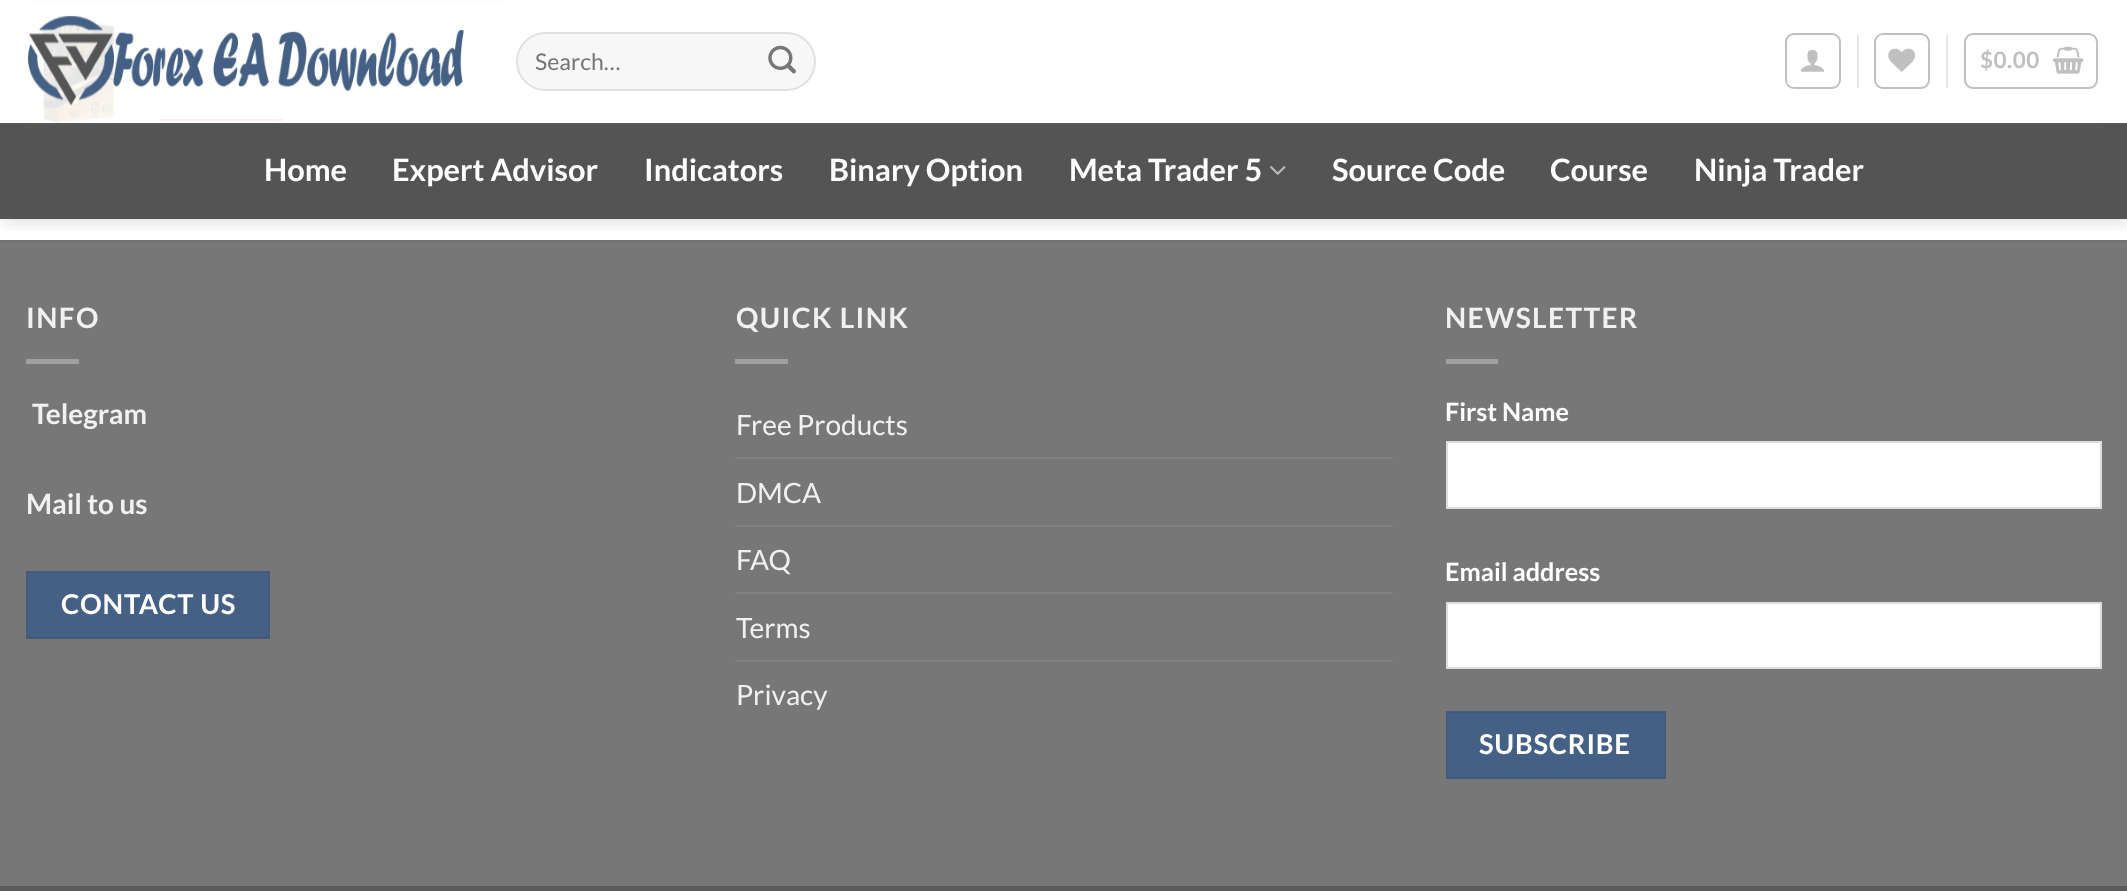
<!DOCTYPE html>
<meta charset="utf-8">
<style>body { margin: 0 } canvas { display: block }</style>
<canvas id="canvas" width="2127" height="891"></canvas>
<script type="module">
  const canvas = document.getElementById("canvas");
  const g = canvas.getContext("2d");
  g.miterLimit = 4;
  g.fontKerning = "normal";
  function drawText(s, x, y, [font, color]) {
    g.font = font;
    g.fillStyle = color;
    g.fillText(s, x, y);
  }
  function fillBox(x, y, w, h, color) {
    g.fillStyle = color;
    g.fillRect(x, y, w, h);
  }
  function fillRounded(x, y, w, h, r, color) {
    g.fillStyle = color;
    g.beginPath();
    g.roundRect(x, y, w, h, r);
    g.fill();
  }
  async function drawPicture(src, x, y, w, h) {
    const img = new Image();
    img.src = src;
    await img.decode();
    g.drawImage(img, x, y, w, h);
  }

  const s1 = ["23px Lato", "#757575"];
  const s2 = ["bold 22.5px Lato", "#C0C0C0"];
  const s3 = ["bold 30.75px Lato", "#FFFFFF"];
  const s4 = ["bold 28px Lato", "#F1F1F1"];
  const s5 = ["bold 27.25px Lato", "#FFFFFF"];
  const s6 = ["28px Lato", "#F1F1F1"];
  const s7 = ["bold 25.25px Lato", "#FFFFFF"];

  fillBox(0, 0, 2127, 891, "#FFFFFF");
  fillBox(26, 0, 480, 2, "#ECECEC");
  await drawPicture("pic1.png", 43, 20, 72, 103);
  fillBox(158, 119, 126, 2, "#E36868");
  fillBox(0, 242, 2127, 644, "#777777");
  fillBox(0, 240, 2127, 2, "#717171");
  g.save();
  g.beginPath();
  g.rect(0, 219, 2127, 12);
  g.clip();
  g.fillStyle = "rgba(0, 0, 0, 0.15)";
  g.filter = "blur(9px)";
  g.beginPath();
  g.rect(2, 2, 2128, 219);
  g.fill();
  g.filter = "none";
  g.restore();
  fillBox(26, 0, 480, 123, "rgba(255, 255, 255, 0.9)");
  await drawPicture("pic2.png", 28, 15, 436, 91);
  fillRounded(516, 32, 300, 59, 29.5, "#F7F7F7");
  g.beginPath();
  g.roundRect(517, 33, 298, 57, 28.5);
  g.strokeStyle = "rgba(0, 0, 0, 0.09)";
  g.lineWidth = 2;
  g.stroke();
  drawText("Search…", 535, 70, s1);
  await drawPicture("pic3.png", 768, 45, 28, 29);
  g.beginPath();
  g.roundRect(1786, 34, 54, 54, 8);
  g.strokeStyle = "#C0C0C0";
  g.stroke();
  await drawPicture("pic4.png", 1800, 49, 25, 23);
  fillBox(1857, 35, 2, 53, "#E6E6E6");
  g.beginPath();
  g.roundRect(1875, 34, 54, 54, 8);
  g.stroke();
  await drawPicture("pic5.png", 1888, 48, 28, 24);
  fillBox(1946, 35, 2, 53, "#E6E6E6");
  g.beginPath();
  g.roundRect(1965, 34, 132, 54, 8);
  g.stroke();
  g.letterSpacing = "0.5px";
  drawText("$0.00", 1980, 68, s2);
  await drawPicture("pic6.png", 2052, 46, 32, 28);
  fillBox(0, 123, 2127, 96, "#545454");
  fillBox(26, 123, 2076, 2, "#585858");
  g.letterSpacing = "0px";
  drawText("Home", 264, 181, s3);
  drawText("Expert Advisor", 392, 181, s3);
  drawText("Indicators", 644, 181, s3);
  drawText("Binary Option", 829, 181, s3);
  drawText("Meta Trader 5", 1069, 181, s3);
  await drawPicture("pic7.png", 1270, 166, 16, 9);
  drawText("Source Code", 1332, 181, s3);
  drawText("Course", 1550, 181, s3);
  drawText("Ninja Trader", 1694, 181, s3);
  g.letterSpacing = "1.4px";
  drawText("INFO", 26, 328, s4);
  fillBox(26, 359, 53, 5, "#A0A0A0");
  g.letterSpacing = "0px";
  drawText("Telegram", 32, 424, s4);
  drawText("Mail to us", 26, 514, s4);
  g.fillStyle = "#446084";
  g.beginPath();
  g.rect(27, 572, 242, 66);
  g.fill();
  g.strokeStyle = "#415B7D";
  g.stroke();
  g.letterSpacing = "0.75px";
  drawText("CONTACT US", 61, 614, s5);
  g.letterSpacing = "1.4px";
  drawText("QUICK LINK", 736, 328, s4);
  fillBox(735, 359, 53, 5, "#A0A0A0");
  g.letterSpacing = "0px";
  drawText("Free Products", 736, 435, s6);
  fillBox(735, 457, 658, 2, "#828282");
  drawText("DMCA", 736, 503, s6);
  fillBox(735, 525, 658, 2, "#828282");
  drawText("FAQ", 736, 570, s6);
  fillBox(735, 592, 658, 2, "#828282");
  drawText("Terms", 736, 638, s6);
  fillBox(735, 660, 658, 2, "#828282");
  drawText("Privacy", 736, 705, s6);
  g.letterSpacing = "1.4px";
  drawText("NEWSLETTER", 1445, 328, s4);
  fillBox(1446, 359, 52, 5, "#A0A0A0");
  g.letterSpacing = "0px";
  drawText("First Name", 1445, 421, s7);
  g.beginPath();
  g.rect(1447, 442, 654, 66);
  g.fill();
  g.strokeStyle = "#DDDDDD";
  g.stroke();
  drawText("Email address", 1445, 581, s7);
  g.beginPath();
  g.rect(1447, 603, 654, 65);
  g.fill();
  g.stroke();
  g.fillStyle = "#446084";
  g.beginPath();
  g.rect(1447, 712, 218, 66);
  g.fill();
  g.strokeStyle = "#415B7D";
  g.stroke();
  g.letterSpacing = "0.75px";
  drawText("SUBSCRIBE", 1479, 754, s5);
  fillBox(0, 886, 2127, 5, "#5B5B5B");
</script>
